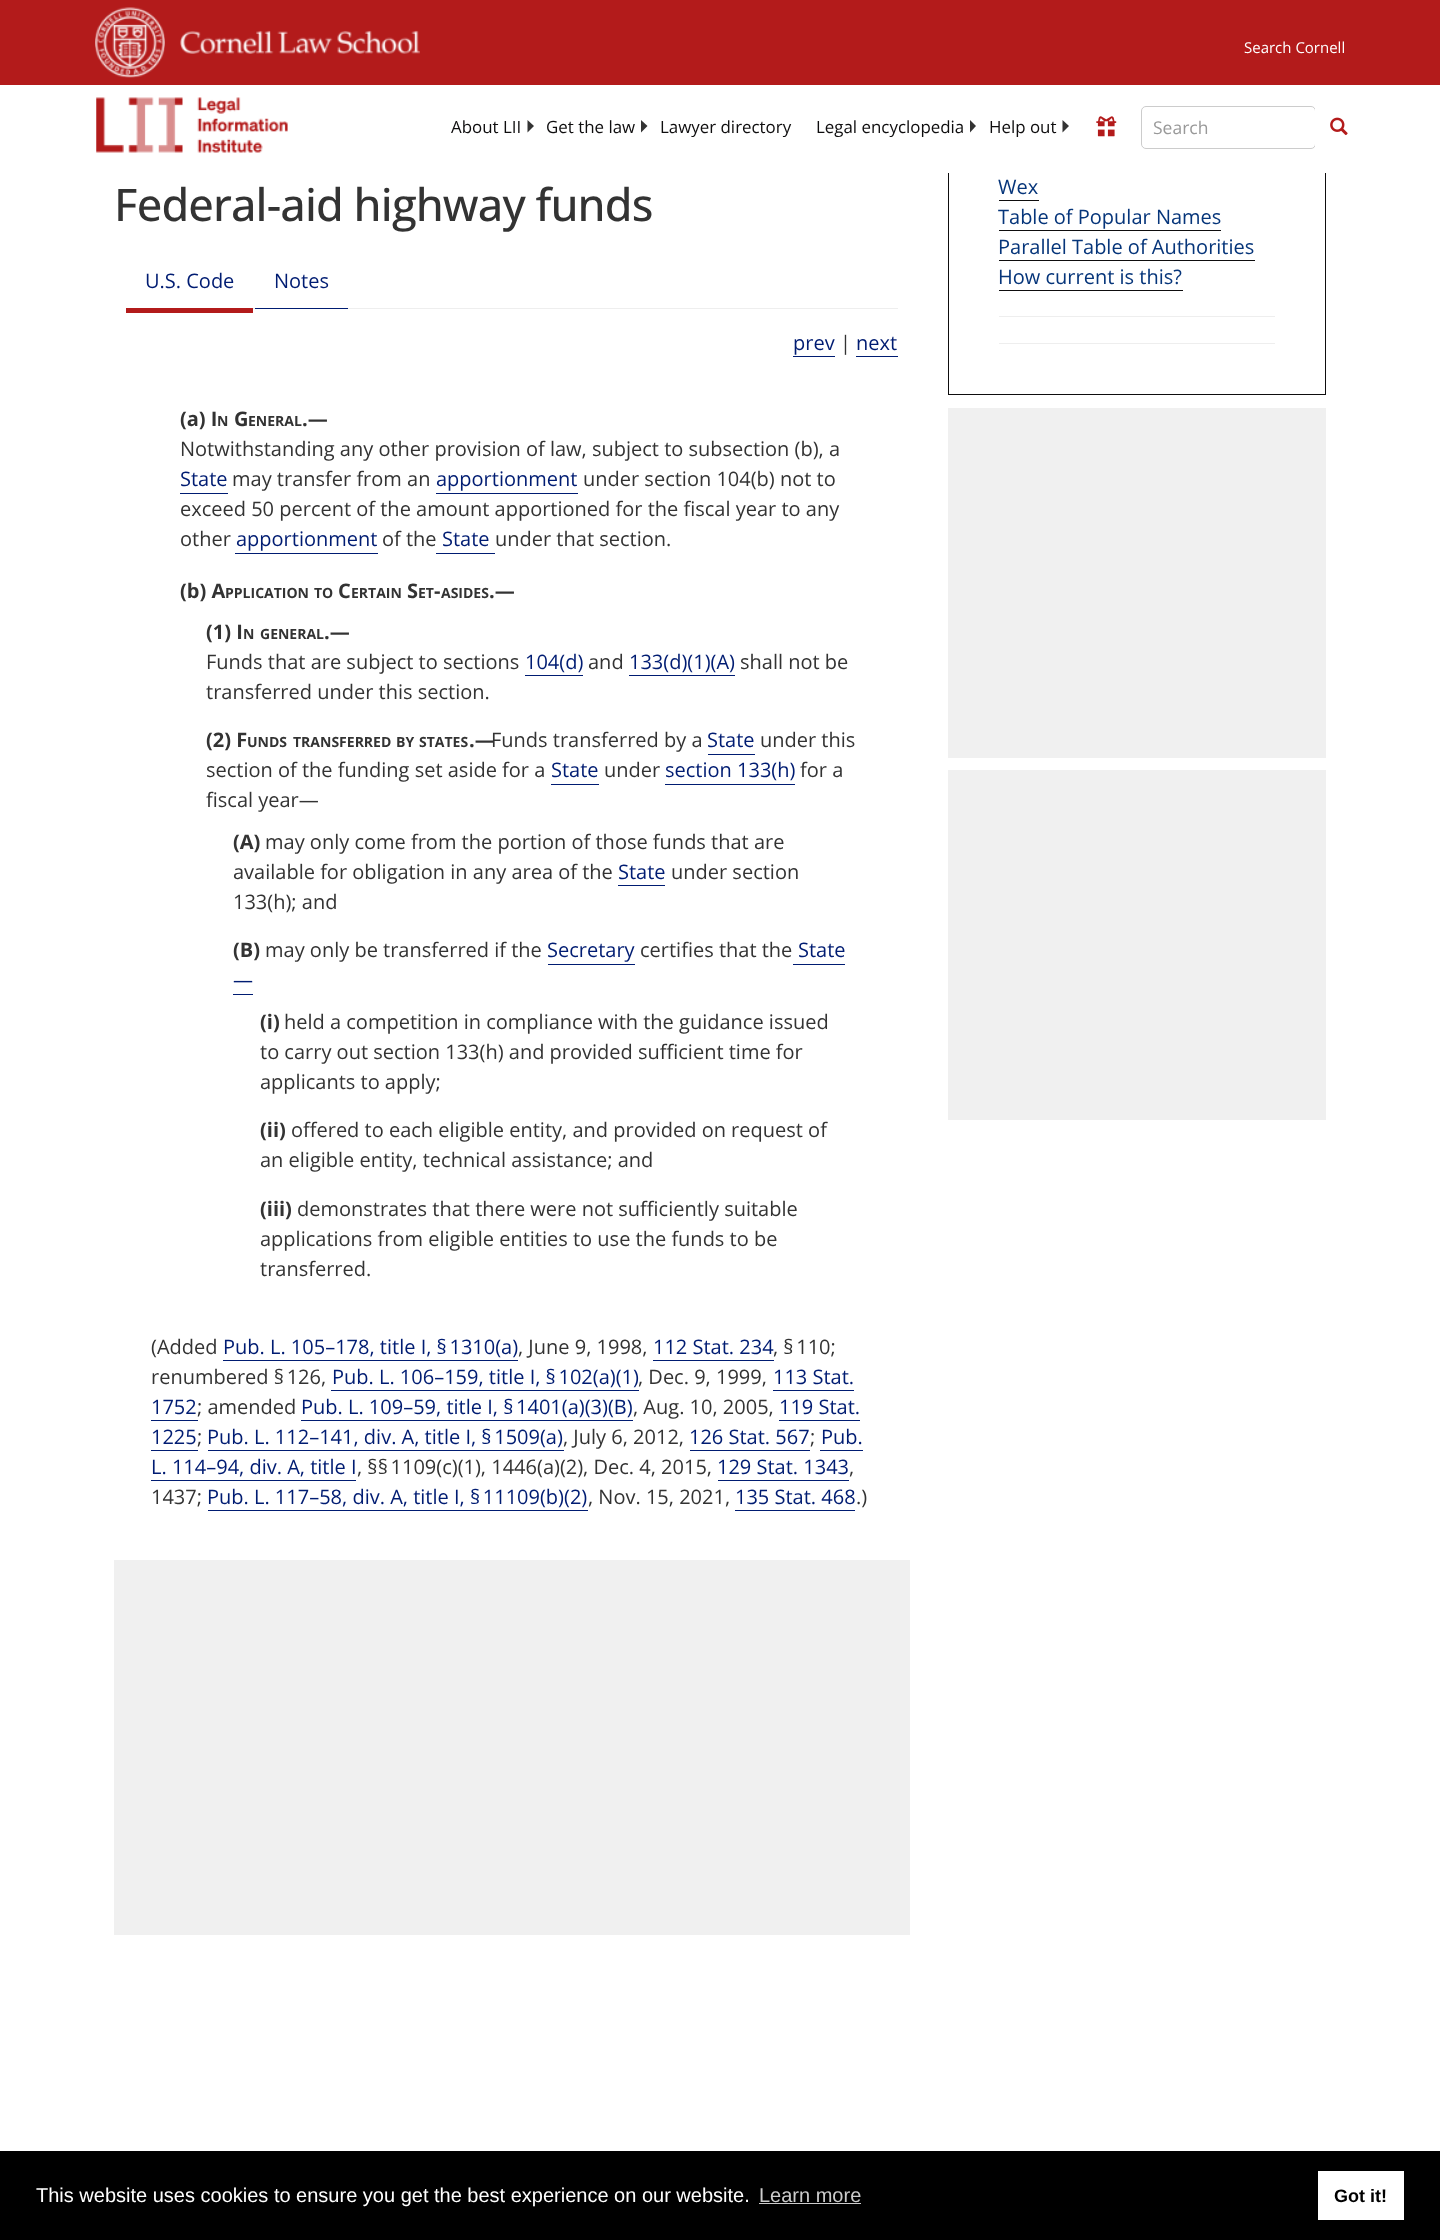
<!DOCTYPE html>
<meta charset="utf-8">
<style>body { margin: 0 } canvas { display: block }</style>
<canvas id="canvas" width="1440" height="2240"></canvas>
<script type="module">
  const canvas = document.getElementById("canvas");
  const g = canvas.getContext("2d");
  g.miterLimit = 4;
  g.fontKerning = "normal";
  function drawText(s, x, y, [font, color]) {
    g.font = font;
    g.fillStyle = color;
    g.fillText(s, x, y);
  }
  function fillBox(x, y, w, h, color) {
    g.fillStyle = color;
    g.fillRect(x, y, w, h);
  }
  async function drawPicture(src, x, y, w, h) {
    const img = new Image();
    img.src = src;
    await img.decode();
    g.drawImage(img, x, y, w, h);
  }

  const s1 = ["15px Open Sans", "#FFFFFF"];
  const s2 = ["16.9px Open Sans", "#0E0D0E"];
  const s3 = ["17.5px Open Sans", "#999999"];
  const s4 = ["500 45px Open Sans", "#333333"];
  const s5 = ["20px Open Sans", "#001C72"];
  const s6 = ["20px Open Sans", "#333333"];
  const s7 = ["bold 20px Open Sans", "#333333"];
  const s8 = ["bold 14px Open Sans", "#333333"];
  const s9 = ["20px Open Sans", "#06357A"];
  const s10 = ["20px Liberation Sans", "#FFFFFF"];
  const s11 = ["20px Liberation Sans", "#CCCCCC"];
  const s12 = ["bold 18px Liberation Sans", "#000000"];

  fillBox(0, 0, 1440, 2240, "#FFFFFF");
  g.strokeStyle = "#0E0D0E";
  g.strokeRect(948.5, 73.5, 377, 321);
  fillBox(0, 0, 1440, 85, "#B31B1B");
  await drawPicture("pic1.png", 95, 7, 70, 71);
  await drawPicture("pic2.png", 180, 30, 240, 24);
  drawText("Search Cornell", 1244, 53, s1);
  fillBox(948, 85, 378, 88, "#FFFFFF");
  await drawPicture("pic3.png", 96, 97, 192, 56);
  drawText("About LII", 451, 133, s2);
  g.fillStyle = "#333333";
  g.beginPath();
  g.moveTo(527.5, 132.5);
  g.lineTo(527.5, 120);
  g.lineTo(534, 126);
  g.closePath();
  g.fill();
  drawText("Get the law", 546, 133, s2);
  g.fillStyle = "#333333";
  g.beginPath();
  g.moveTo(641, 132.5);
  g.lineTo(641, 120);
  g.lineTo(647.5, 126);
  g.closePath();
  g.fill();
  drawText("Lawyer directory", 660, 133, s2);
  drawText("Legal encyclopedia", 816, 133, s2);
  g.fillStyle = "#333333";
  g.beginPath();
  g.moveTo(970, 132.5);
  g.lineTo(970, 120);
  g.lineTo(976, 126);
  g.closePath();
  g.fill();
  drawText("Help out", 989, 133, s2);
  g.fillStyle = "#333333";
  g.beginPath();
  g.moveTo(1062.5, 132.5);
  g.lineTo(1062.5, 120);
  g.lineTo(1069, 126);
  g.closePath();
  g.fill();
  await drawPicture("pic4.png", 1096, 116, 21, 21);
  g.beginPath();
  g.roundRect(1141.5, 106.5, 174, 42, 4.5);
  g.strokeStyle = "#CCCCCC";
  g.stroke();
  drawText("Search", 1153, 134, s3);
  g.fillStyle = "#FFFFFF";
  g.beginPath();
  g.roundRect(1315, 108, 48, 40, [0, 5, 5, 0]);
  g.fill();
  await drawPicture("pic5.png", 1330, 117, 18, 19);
  g.letterSpacing = "-0.9px";
  drawText("Federal-aid highway funds", 114, 221, s4);
  fillBox(126, 308, 127, 5, "#B31B1B");
  g.letterSpacing = "0px";
  drawText("U.S. Code", 145, 288, s5);
  fillBox(253, 308, 645, 1, "#EEEEEE");
  fillBox(255, 308, 93, 1, "#001C72");
  drawText("Notes", 274, 288, s5);
  drawText("prev", 793, 350, s5);
  fillBox(793, 356, 42, 1, "#001C72");
  drawText("|", 840, 350, s6);
  drawText("next", 856, 350, s5);
  fillBox(856, 356, 42, 1, "#001C72");
  drawText("(a) I", 180, 426, s7);
  drawText("N", 217, 426, s8);
  drawText("G", 234, 426, s7);
  drawText("ENERAL", 248, 426, s8);
  drawText(".—", 302, 426, s7);
  drawText("Notwithstanding any other provision of law, subject to subsection (b), a", 180, 456, s6);
  drawText("State", 180, 486, s5);
  fillBox(180, 493, 48, 1, "#001C72");
  drawText("may transfer from an", 232, 486, s6);
  drawText("apportionment", 436, 486, s5);
  fillBox(436, 493, 142, 1, "#001C72");
  drawText("under section 104(b) not to", 583, 486, s6);
  drawText("exceed 50 percent of the amount apportioned for the fiscal year to any", 180, 516, s6);
  drawText("other", 180, 546, s6);
  drawText("apportionment", 236, 546, s5);
  fillBox(235, 553, 143, 1, "#001C72");
  drawText("of the", 382, 546, s6);
  drawText("State", 442, 546, s5);
  fillBox(436, 553, 59, 1, "#001C72");
  drawText("under that section.", 495, 546, s6);
  drawText("(b) A", 180, 598, s7);
  drawText("PPLICATION", 225, 598, s8);
  drawText("TO", 314, 598, s8);
  drawText("C", 338, 598, s7);
  drawText("ERTAIN", 351, 598, s8);
  drawText("S", 407, 598, s7);
  drawText("ET", 418, 598, s8);
  drawText("-", 434, 598, s7);
  drawText("ASIDES", 441, 598, s8);
  drawText(".—", 489, 598, s7);
  drawText("(1) I", 206, 639, s7);
  drawText("N", 243, 639, s8);
  drawText("GENERAL", 260, 639, s8);
  drawText(".—", 324, 639, s7);
  drawText("Funds that are subject to sections", 206, 669, s6);
  drawText("104(d)", 525, 669, s5);
  fillBox(525, 675, 58, 1, "#001C72");
  drawText("and", 588, 669, s6);
  drawText("133(d)(1)(A)", 629, 669, s5);
  fillBox(629, 675, 106, 1, "#001C72");
  drawText("shall not be", 740, 669, s6);
  drawText("transferred under this section.", 206, 699, s6);
  drawText("(2) F", 206, 747, s7);
  drawText("UNDS", 247, 747, s8);
  drawText("TRANSFERRED", 293, 747, s8);
  drawText("BY", 396, 747, s8);
  drawText("STATES", 419, 747, s8);
  drawText(".—", 469, 747, s7);
  drawText("Funds transferred by a", 491, 747, s6);
  drawText("State", 707, 747, s5);
  fillBox(708, 754, 47, 1, "#001C72");
  drawText("under this", 760, 747, s6);
  drawText("section of the funding set aside for a", 206, 777, s6);
  drawText("State", 551, 777, s5);
  fillBox(551, 784, 48, 1, "#001C72");
  drawText("under", 604, 777, s6);
  drawText("section 133(h)", 665, 777, s5);
  fillBox(665, 784, 130, 1, "#001C72");
  drawText("for a", 800, 777, s6);
  drawText("fiscal year—", 206, 807, s6);
  drawText("(A)", 233, 849, s7);
  drawText("may only come from the portion of those funds that are", 265, 849, s6);
  drawText("available for obligation in any area of the", 233, 879, s6);
  drawText("State", 618, 879, s5);
  fillBox(618, 885, 47, 1, "#001C72");
  drawText("under section", 671, 879, s6);
  drawText("133(h); and", 233, 909, s6);
  drawText("(B)", 233, 957, s7);
  drawText("may only be transferred if the", 265, 957, s6);
  drawText("Secretary", 547, 957, s5);
  fillBox(548, 964, 87, 1, "#001C72");
  drawText("certifies that the", 640, 957, s6);
  drawText("State", 798, 957, s5);
  fillBox(793, 964, 52, 1, "#001C72");
  drawText("—", 233, 987, s5);
  fillBox(233, 994, 20, 1, "#001C72");
  drawText("(i)", 260, 1029, s7);
  drawText("held a competition in compliance with the guidance issued", 284, 1029, s6);
  drawText("to carry out section 133(h) and provided sufficient time for", 260, 1059, s6);
  drawText("applicants to apply;", 260, 1089, s6);
  drawText("(ii)", 260, 1137, s7);
  drawText("offered to each eligible entity, and provided on request of", 291, 1137, s6);
  drawText("an eligible entity, technical assistance; and", 260, 1167, s6);
  drawText("(iii)", 260, 1216, s7);
  drawText("demonstrates that there were not sufficiently suitable", 297, 1216, s6);
  drawText("applications from eligible entities to use the funds to be", 260, 1246, s6);
  drawText("transferred.", 260, 1276, s6);
  drawText("(Added", 151, 1354, s6);
  drawText("Pub. L. 105–178, title I, § 1310(a)", 223, 1354, s5);
  fillBox(223, 1360, 295, 1, "#001C72");
  drawText(", June 9, 1998,", 518, 1354, s6);
  drawText("112 Stat. 234", 653, 1354, s5);
  fillBox(653, 1360, 121, 1, "#001C72");
  drawText(", § 110;", 773, 1354, s6);
  drawText("renumbered § 126,", 151, 1384, s6);
  drawText("Pub. L. 106–159, title I, § 102(a)(1)", 332, 1384, s5);
  fillBox(331, 1390, 308, 1, "#001C72");
  drawText(", Dec. 9, 1999,", 638, 1384, s6);
  drawText("113 Stat.", 773, 1384, s5);
  fillBox(773, 1390, 81, 1, "#001C72");
  drawText("1752", 151, 1414, s5);
  fillBox(151, 1420, 47, 1, "#001C72");
  drawText("; amended", 197, 1414, s6);
  drawText("Pub. L. 109–59, title I, § 1401(a)(3)(B)", 301, 1414, s5);
  fillBox(301, 1420, 332, 1, "#001C72");
  drawText(", Aug. 10, 2005,", 633, 1414, s6);
  drawText("119 Stat.", 779, 1414, s5);
  fillBox(779, 1420, 81, 1, "#001C72");
  drawText("1225", 151, 1444, s5);
  fillBox(151, 1450, 47, 1, "#001C72");
  drawText(";", 197, 1444, s6);
  drawText("Pub. L. 112–141, div. A, title I, § 1509(a)", 207, 1444, s5);
  fillBox(208, 1450, 356, 1, "#001C72");
  drawText(", July 6, 2012,", 563, 1444, s6);
  drawText("126 Stat. 567", 689, 1444, s5);
  fillBox(690, 1450, 120, 1, "#001C72");
  drawText(";", 810, 1444, s6);
  drawText("Pub.", 821, 1444, s5);
  fillBox(820, 1450, 43, 1, "#001C72");
  drawText("L. 114–94, div. A, title I", 151, 1474, s5);
  fillBox(151, 1480, 205, 1, "#001C72");
  drawText(", §§ 1109(c)(1), 1446(a)(2), Dec. 4, 2015,", 357, 1474, s6);
  drawText("129 Stat. 1343", 717, 1474, s5);
  fillBox(718, 1480, 131, 1, "#001C72");
  drawText(",", 849, 1474, s6);
  drawText("1437;", 151, 1504, s6);
  drawText("Pub. L. 117–58, div. A, title I, § 11109(b)(2)", 207, 1504, s5);
  fillBox(208, 1510, 380, 1, "#001C72");
  drawText(", Nov. 15, 2021,", 588, 1504, s6);
  drawText("135 Stat. 468", 735, 1504, s5);
  fillBox(735, 1510, 120, 1, "#001C72");
  drawText(".)", 856, 1504, s6);
  fillBox(114, 1560, 796, 375, "#F0F0F0");
  drawText("Wex", 998, 194, s9);
  fillBox(999, 200, 40, 1, "#0E0D0E");
  drawText("Table of Popular Names", 998, 224, s9);
  fillBox(999, 230, 222, 1, "#0E0D0E");
  drawText("Parallel Table of Authorities", 998, 254, s9);
  fillBox(999, 260, 256, 1, "#0E0D0E");
  drawText("How current is this?", 998, 284, s9);
  fillBox(999, 290, 184, 1, "#0E0D0E");
  fillBox(999, 316, 276, 1, "#EEEEEE");
  fillBox(999, 343, 276, 1, "#EEEEEE");
  fillBox(948, 408, 378, 350, "#F0F0F0");
  fillBox(948, 770, 378, 350, "#F0F0F0");
  fillBox(0, 2151, 1440, 89, "#000000");
  drawText("This website uses cookies to ensure you get the best experience on our website.", 36, 2202, s10);
  drawText("Learn more", 759, 2202, s11);
  fillBox(759, 2203, 102, 1, "#CCCCCC");
  fillBox(1318, 2171, 86, 49, "#FFFFFF");
  drawText("Got it!", 1334, 2202, s12);
</script>
